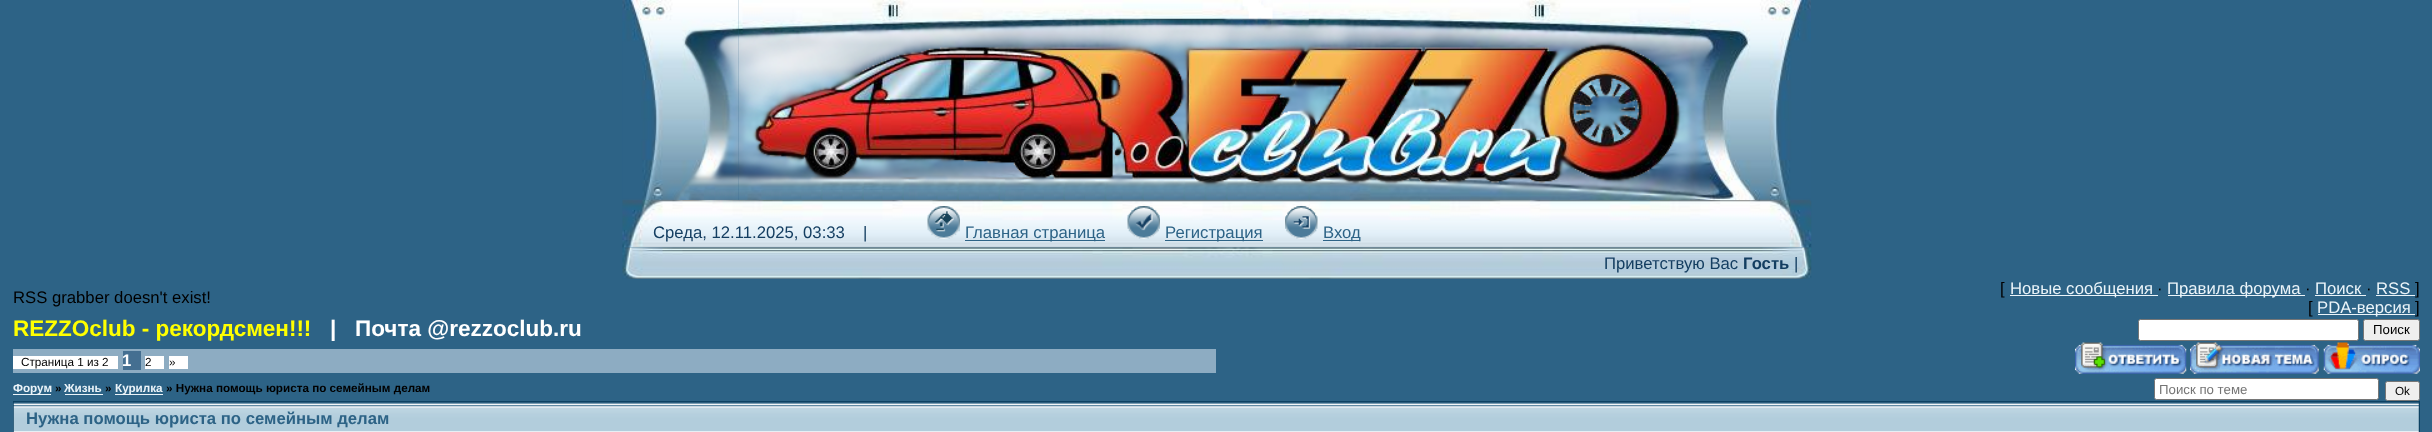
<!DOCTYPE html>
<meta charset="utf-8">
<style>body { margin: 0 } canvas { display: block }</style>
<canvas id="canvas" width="2432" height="432"></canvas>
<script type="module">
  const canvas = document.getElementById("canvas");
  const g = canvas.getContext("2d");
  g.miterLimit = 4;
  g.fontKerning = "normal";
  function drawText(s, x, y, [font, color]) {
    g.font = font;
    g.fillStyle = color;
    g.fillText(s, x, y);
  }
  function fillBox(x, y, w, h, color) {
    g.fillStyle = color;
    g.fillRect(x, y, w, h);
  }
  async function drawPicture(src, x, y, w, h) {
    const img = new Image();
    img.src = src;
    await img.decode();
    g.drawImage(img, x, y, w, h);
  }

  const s1 = ["16.7px Liberation Sans", "#143E61"];
  const s2 = ["16.7px Liberation Sans", "#2D6386"];
  const s3 = ["bold 16.7px Liberation Sans", "#143E61"];
  const s4 = ["16.7px Liberation Sans", "#000000"];
  const s5 = ["16.7px Liberation Sans", "#EBF4F9"];
  const s6 = ["bold 22.5px Liberation Sans", "#FFFF00"];
  const s7 = ["bold 22.5px Liberation Sans", "#FFFFFF"];
  const s8 = ["13.25px Liberation Sans", "#000000"];
  const s9 = ["11.7px Liberation Sans", "#000000"];
  const s10 = ["bold 16.7px Liberation Sans", "#FFFFFF"];
  const s11 = ["bold 11.7px Liberation Sans", "#EBF4F9"];
  const s12 = ["bold 11.7px Liberation Sans", "#000000"];
  const s13 = ["13.25px Liberation Sans", "#757575"];
  const s14 = ["bold 16.7px Liberation Sans", "#2D6386"];

  fillBox(0, 0, 2432, 432, "#2D6386");
  await drawPicture("pic1.png", 622, 0, 117, 200);
  await drawPicture("pic2.png", 738, 0, 957, 200);
  await drawPicture("pic3.png", 1695, 0, 116, 200);
  await drawPicture("pic4.png", 622, 200, 1190, 48);
  drawText("Среда, 12.11.2025, 03:33", 653, 238, s1);
  drawText("|", 863, 238, s1);
  await drawPicture("pic5.png", 927, 206, 33, 33);
  fillBox(965, 240, 140, 1, "#2D6386");
  drawText("Главная страница", 965, 238, s2);
  await drawPicture("pic6.png", 1127, 206, 33, 33);
  fillBox(1165, 240, 98, 1, "#2D6386");
  drawText("Регистрация", 1165, 238, s2);
  await drawPicture("pic7.png", 1285, 206, 33, 33);
  fillBox(1323, 240, 37, 1, "#2D6386");
  drawText("Вход", 1323, 238, s2);
  await drawPicture("pic8.png", 622, 247, 1190, 32);
  drawText("Приветствую Вас", 1604, 269, s1);
  drawText("Гость", 1743, 269, s3);
  drawText("|", 1794, 269, s1);
  drawText("RSS grabber doesn't exist!", 13, 303, s4);
  drawText("[", 2000, 294, s4);
  fillBox(2010, 295, 148, 1, "#EBF4F9");
  drawText("Новые сообщения", 2010, 294, s5);
  drawText("·", 2157, 294, s4);
  fillBox(2168, 295, 137, 1, "#EBF4F9");
  drawText("Правила форума", 2167, 294, s5);
  drawText("·", 2305, 294, s4);
  drawText("Поиск", 2315, 294, s5);
  fillBox(2315, 295, 51, 1, "#EBF4F9");
  drawText("·", 2366, 294, s4);
  drawText("RSS", 2376, 294, s5);
  fillBox(2376, 295, 39, 1, "#EBF4F9");
  drawText("]", 2415, 294, s4);
  drawText("[", 2308, 313, s4);
  fillBox(2318, 314, 97, 1, "#EBF4F9");
  drawText("PDA-версия", 2317, 313, s5);
  drawText("]", 2415, 313, s4);
  drawText("REZZOclub - рекордсмен!!!", 13, 336, s6);
  drawText("|", 330, 336, s7);
  drawText("Почта @rezzoclub.ru", 355, 336, s7);
  g.beginPath();
  g.roundRect(2138.5, 319.5, 220, 21, 2);
  g.fill();
  g.strokeStyle = "#767676";
  g.stroke();
  g.fillStyle = "#EFEFEF";
  g.beginPath();
  g.roundRect(2363.5, 319.5, 56, 21, 2);
  g.fill();
  g.stroke();
  drawText("Поиск", 2373, 334, s8);
  fillBox(13, 349, 1203, 24, "#8DACC2");
  fillBox(13, 356, 105, 13, "#FFFFFF");
  drawText("Страница 1 из 2", 21, 366, s9);
  fillBox(123, 351, 18, 19, "#446F91");
  drawText("1", 122, 366, s10);
  fillBox(145, 356, 19, 13, "#FFFFFF");
  drawText("2", 145, 366, s9);
  fillBox(169, 356, 19, 13, "#FFFFFF");
  drawText("»", 169, 366, s9);
  await drawPicture("pic9.png", 2075, 342, 112, 32);
  await drawPicture("pic10.png", 2190, 342, 129, 32);
  await drawPicture("pic11.png", 2323, 342, 97, 32);
  fillBox(13, 394, 38, 1, "#EBF4F9");
  drawText("Форум", 13, 392, s11);
  drawText("»", 55, 392, s12);
  drawText("Жизнь", 64, 392, s11);
  fillBox(65, 394, 38, 1, "#EBF4F9");
  drawText("»", 105, 392, s12);
  fillBox(115, 394, 48, 1, "#EBF4F9");
  drawText("Курилка", 115, 392, s11);
  drawText("» Нужна помощь юриста по семейным делам", 166, 392, s12);
  g.fillStyle = "#FFFFFF";
  g.beginPath();
  g.roundRect(2154.5, 378.5, 224, 21, 2);
  g.fill();
  g.stroke();
  drawText("Поиск по теме", 2159, 394, s13);
  g.fillStyle = "#EFEFEF";
  g.beginPath();
  g.roundRect(2385.5, 381.5, 34, 19, 2);
  g.fill();
  g.stroke();
  drawText("Ok", 2395, 395, s9);
  fillBox(13, 401, 2407, 31, "#0C4162");
  await drawPicture("pic12.png", 13, 402, 2406, 30);
  drawText("Нужна помощь юриста по семейным делам", 26, 424, s14);
</script>
